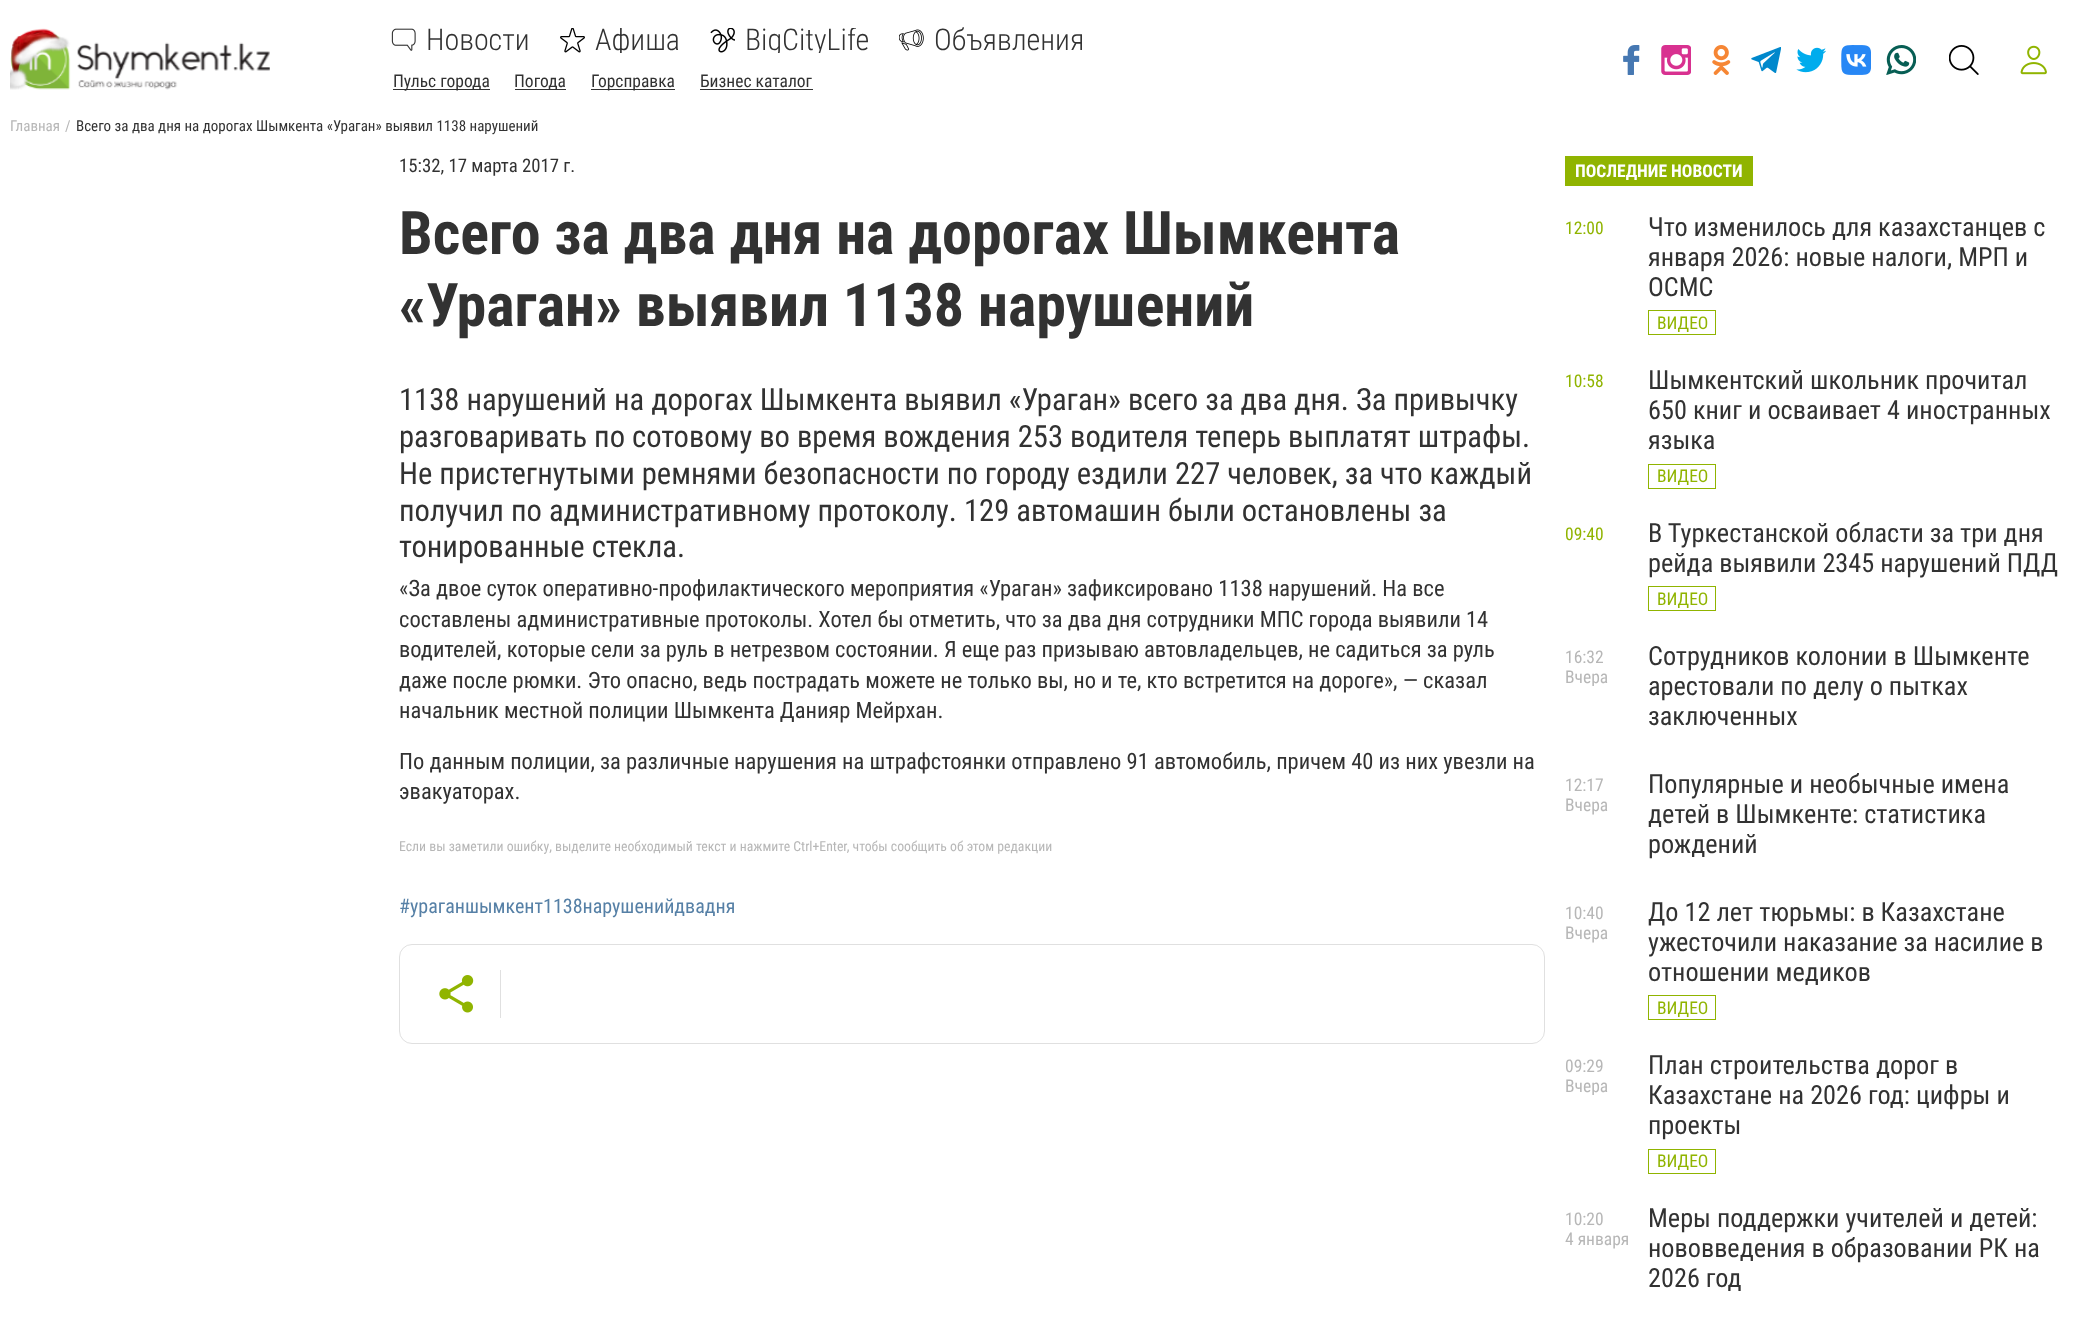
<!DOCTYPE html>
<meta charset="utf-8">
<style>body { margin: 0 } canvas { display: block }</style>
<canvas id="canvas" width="2073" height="1326"></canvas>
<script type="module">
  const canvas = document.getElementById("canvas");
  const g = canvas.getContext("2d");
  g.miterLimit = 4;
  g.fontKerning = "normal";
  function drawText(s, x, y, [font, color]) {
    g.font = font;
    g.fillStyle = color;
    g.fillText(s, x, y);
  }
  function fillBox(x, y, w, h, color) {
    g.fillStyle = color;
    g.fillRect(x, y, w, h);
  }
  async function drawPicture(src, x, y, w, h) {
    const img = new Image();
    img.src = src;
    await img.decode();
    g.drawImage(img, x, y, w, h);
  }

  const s1 = ["300 30px Roboto Condensed", "#323232"];
  const s2 = ["17.5px Roboto Condensed", "#323232"];
  const s3 = ["15px Roboto Condensed", "#B7B7B7"];
  const s4 = ["15px Roboto Condensed", "#323232"];
  const s5 = ["18.75px Roboto Condensed", "#323232"];
  const s6 = ["bold 60px Roboto Condensed", "#323232"];
  const s7 = ["30.6px Roboto Condensed", "#323232"];
  const s8 = ["22.5px Roboto Condensed", "#323232"];
  const s9 = ["13.75px Roboto Condensed", "#B7B7B7"];
  const s10 = ["20px Roboto Condensed", "#5680A6"];
  const s11 = ["bold 17.5px Roboto Condensed", "#FFFFFF"];
  const s12 = ["17.5px Roboto Condensed", "#90B400"];
  const s13 = ["26.25px Roboto Condensed", "#323232"];
  const s14 = ["17.5px Roboto Condensed", "#B7B7B7"];

  fillBox(0, 0, 2073, 1326, "#FFFFFF");
  await drawPicture("pic1.png", 10, 28, 260, 62);
  await drawPicture("pic2.png", 391, 28, 25, 23);
  drawText("Новости", 426, 50, s1);
  await drawPicture("pic3.png", 560, 28, 25, 25);
  g.save();
  g.beginPath();
  g.rect(560, 28, 120, 25);
  g.clip();
  drawText("Афиша", 595, 50, s1);
  g.restore();
  await drawPicture("pic4.png", 710, 28, 25, 25);
  g.save();
  g.beginPath();
  g.rect(710, 28, 159, 25);
  g.clip();
  drawText("BigCityLife", 745, 50, s1);
  g.restore();
  await drawPicture("pic5.png", 899, 29, 25, 22);
  drawText("Объявления", 934, 50, s1);
  fillBox(393, 89, 97, 1, "#323232");
  drawText("Пульс города", 393, 87, s2);
  fillBox(515, 89, 51, 1, "#323232");
  drawText("Погода", 514, 87, s2);
  fillBox(591, 89, 84, 1, "#323232");
  drawText("Горсправка", 591, 87, s2);
  drawText("Бизнес каталог", 700, 87, s2);
  fillBox(700, 89, 113, 1, "#323232");
  await drawPicture("pic6.png", 1623, 45, 17, 30);
  await drawPicture("pic7.png", 1661, 45, 30, 30);
  await drawPicture("pic8.png", 1712, 45, 19, 30);
  await drawPicture("pic9.png", 1751, 47, 30, 26);
  await drawPicture("pic10.png", 1796, 47, 30, 26);
  await drawPicture("pic11.png", 1841, 45, 30, 30);
  await drawPicture("pic12.png", 1886, 45, 30, 30);
  await drawPicture("pic13.png", 1949, 45, 30, 30);
  await drawPicture("pic14.png", 2020, 45, 27, 30);
  drawText("Главная", 10, 131, s3);
  drawText("/", 65, 131, s3);
  drawText("Всего за два дня на дорогах Шымкента «Ураган» выявил 1138 нарушений", 76, 131, s4);
  drawText("15:32, 17 марта 2017 г.", 399, 172, s5);
  drawText("Всего за два дня на дорогах Шымкента", 399, 254, s6);
  drawText("«Ураган» выявил 1138 нарушений", 399, 326, s6);
  drawText("1138 нарушений на дорогах Шымкента выявил «Ураган» всего за два дня. За привычку", 399, 410, s7);
  drawText("разговаривать по сотовому во время вождения 253 водителя теперь выплатят штрафы.", 399, 447, s7);
  drawText("Не пристегнутыми ремнями безопасности по городу ездили 227 человек, за что каждый", 399, 484, s7);
  drawText("получил по административному протоколу. 129 автомашин были остановлены за", 399, 521, s7);
  drawText("тонированные стекла.", 399, 557, s7);
  drawText("«За двое суток оперативно-профилактического мероприятия «Ураган» зафиксировано 1138 нарушений. На все", 399, 596, s8);
  drawText("составлены административные протоколы. Хотел бы отметить, что за два дня сотрудники МПС города выявили 14", 399, 627, s8);
  drawText("водителей, которые сели за руль в нетрезвом состоянии. Я еще раз призываю автовладельцев, не садиться за руль", 399, 657, s8);
  drawText("даже после рюмки. Это опасно, ведь пострадать можете не только вы, но и те, кто встретится на дороге», — сказал", 399, 688, s8);
  drawText("начальник местной полиции Шымкента Данияр Мейрхан.", 399, 718, s8);
  drawText("По данным полиции, за различные нарушения на штрафстоянки отправлено 91 автомобиль, причем 40 из них увезли на", 399, 769, s8);
  drawText("эвакуаторах.", 399, 799, s8);
  drawText("Если вы заметили ошибку, выделите необходимый текст и нажмите Ctrl+Enter, чтобы сообщить об этом редакции", 399, 851, s9);
  drawText("#ураганшымкент1138нарушенийдвадня", 399, 913, s10);
  g.beginPath();
  g.roundRect(399.5, 944.5, 1145, 99, 12.5);
  g.strokeStyle = "#E0E0E0";
  g.stroke();
  await drawPicture("pic15.png", 439, 975, 35, 38);
  fillBox(500, 970, 1, 48, "#E0E0E0");
  fillBox(1565, 156, 188, 30, "#90B400");
  drawText("ПОСЛЕДНИЕ НОВОСТИ", 1575, 177, s11);
  drawText("12:00", 1565, 234, s12);
  drawText("Что изменилось для казахстанцев с", 1648, 236, s13);
  drawText("января 2026: новые налоги, МРП и", 1648, 266, s13);
  drawText("ОСМС", 1648, 296, s13);
  g.strokeStyle = "#90B400";
  g.strokeRect(1648.5, 310.5, 67, 24);
  drawText("ВИДЕО", 1657, 329, s12);
  drawText("10:58", 1565, 387, s12);
  drawText("Шымкентский школьник прочитал", 1648, 389, s13);
  drawText("650 книг и осваивает 4 иностранных", 1648, 419, s13);
  drawText("языка", 1648, 449, s13);
  g.strokeRect(1648.5, 464.5, 67, 24);
  drawText("ВИДЕО", 1657, 482, s12);
  drawText("09:40", 1565, 540, s12);
  drawText("В Туркестанской области за три дня", 1648, 542, s13);
  drawText("рейда выявили 2345 нарушений ПДД", 1648, 572, s13);
  g.strokeRect(1648.5, 586.5, 67, 24);
  drawText("ВИДЕО", 1657, 605, s12);
  drawText("16:32", 1565, 663, s14);
  g.save();
  g.beginPath();
  g.rect(1565, 666, 44, 20);
  g.clip();
  drawText("Вчера", 1565, 683, s14);
  g.restore();
  drawText("Сотрудников колонии в Шымкенте", 1648, 665, s13);
  drawText("арестовали по делу о пытках", 1648, 695, s13);
  drawText("заключенных", 1648, 725, s13);
  drawText("12:17", 1565, 791, s14);
  drawText("Вчера", 1565, 811, s14);
  drawText("Популярные и необычные имена", 1648, 793, s13);
  drawText("детей в Шымкенте: статистика", 1648, 823, s13);
  drawText("рождений", 1648, 853, s13);
  drawText("10:40", 1565, 919, s14);
  drawText("Вчера", 1565, 939, s14);
  drawText("До 12 лет тюрьмы: в Казахстане", 1648, 921, s13);
  drawText("ужесточили наказание за насилие в", 1648, 951, s13);
  drawText("отношении медиков", 1648, 981, s13);
  g.strokeRect(1648.5, 995.5, 67, 24);
  drawText("ВИДЕО", 1657, 1014, s12);
  drawText("09:29", 1565, 1072, s14);
  g.save();
  g.beginPath();
  g.rect(1565, 1075, 44, 20);
  g.clip();
  drawText("Вчера", 1565, 1092, s14);
  g.restore();
  drawText("План строительства дорог в", 1648, 1074, s13);
  drawText("Казахстане на 2026 год: цифры и", 1648, 1104, s13);
  drawText("проекты", 1648, 1134, s13);
  g.strokeRect(1648.5, 1149.5, 67, 24);
  drawText("ВИДЕО", 1657, 1167, s12);
  drawText("10:20", 1565, 1225, s14);
  drawText("4 января", 1565, 1245, s14);
  drawText("Меры поддержки учителей и детей:", 1648, 1227, s13);
  drawText("нововведения в образовании РК на", 1648, 1257, s13);
  drawText("2026 год", 1648, 1287, s13);
</script>
